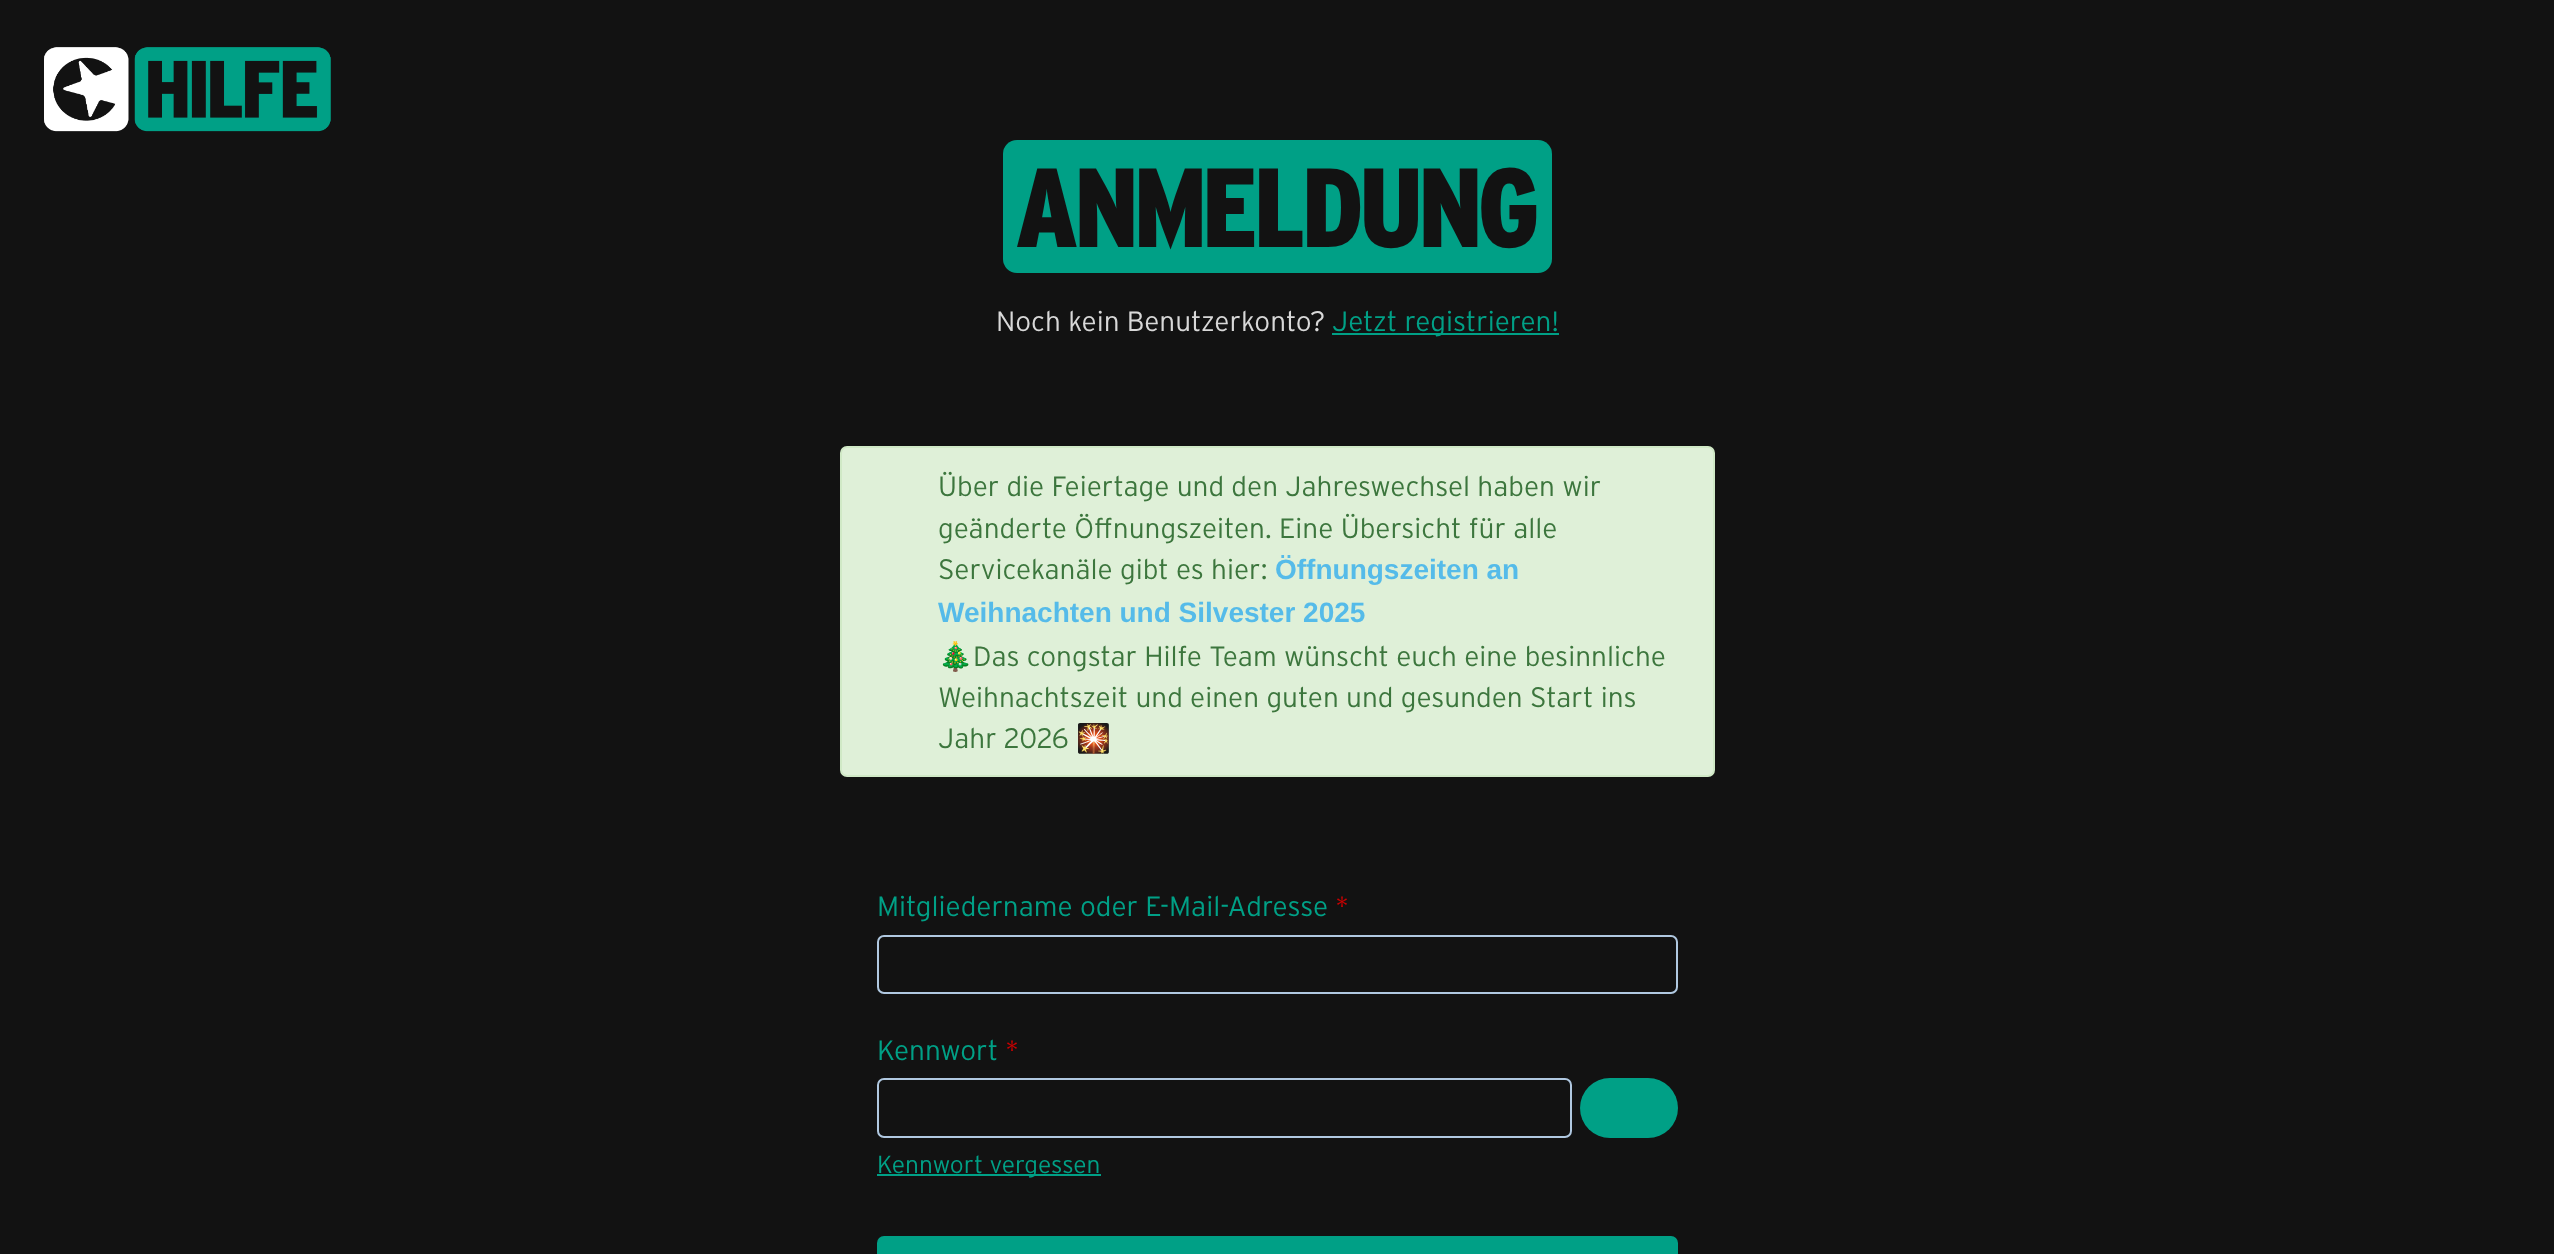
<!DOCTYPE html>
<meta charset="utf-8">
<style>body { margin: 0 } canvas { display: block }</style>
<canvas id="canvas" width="2554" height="1254"></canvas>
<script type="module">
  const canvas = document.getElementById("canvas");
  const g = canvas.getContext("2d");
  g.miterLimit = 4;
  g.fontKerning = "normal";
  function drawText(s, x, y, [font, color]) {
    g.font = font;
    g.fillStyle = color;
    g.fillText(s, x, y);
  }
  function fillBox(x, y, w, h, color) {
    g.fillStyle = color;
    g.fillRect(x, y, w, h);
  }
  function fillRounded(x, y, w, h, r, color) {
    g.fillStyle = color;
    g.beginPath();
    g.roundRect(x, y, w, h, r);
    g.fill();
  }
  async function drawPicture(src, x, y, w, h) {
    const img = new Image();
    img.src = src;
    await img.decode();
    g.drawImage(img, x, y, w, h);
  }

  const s1 = ["900 112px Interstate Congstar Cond", "#121212"];
  const s2 = ["300 28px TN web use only", "#D8D8D8"];
  const s3 = ["300 28px TN web use only", "#00A086"];
  const s4 = ["300 28px TN web use only", "#3C763D"];
  const s5 = ["bold 28px Liberation Sans", "#55BBE9"];
  const s6 = ["28px Noto Color Emoji", "#3C763D"];
  const s7 = ["300 28px TN web use only", "#CC0001"];
  const s8 = ["300 24.5px TN web use only", "#00A086"];

  fillBox(0, 0, 2554, 1254, "#121212");
  await drawPicture("pic1.png", 44, 47, 287, 85);
  fillRounded(1003, 140, 549, 133, 14, "#00A086");
  drawText("ANMELDUNG", 1017, 247, s1);
  drawText("Noch kein Benutzerkonto?", 996, 331, s2);
  fillBox(1332, 333, 227, 2, "#00A086");
  drawText("Jetzt registrieren!", 1332, 331, s3);
  g.fillStyle = "#DFF0D8";
  g.beginPath();
  g.roundRect(841, 447, 873, 329, 6);
  g.fill();
  g.strokeStyle = "#D0E9C6";
  g.lineWidth = 2;
  g.stroke();
  drawText("Über die Feiertage und den Jahreswechsel haben wir", 938, 496, s4);
  drawText("geänderte Öffnungszeiten. Eine Übersicht für alle", 938, 538, s4);
  drawText("Servicekanäle gibt es hier:", 938, 579, s4);
  drawText("Öffnungszeiten an", 1275, 579, s5);
  drawText("Weihnachten und Silvester 2025", 938, 622, s5);
  drawText("🎄", 938, 666, s6);
  drawText("Das congstar Hilfe Team wünscht euch eine besinnliche", 973, 666, s4);
  drawText("Weihnachtszeit und einen guten und gesunden Start ins", 938, 707, s4);
  drawText("Jahr 2026", 938, 748, s4);
  drawText("🎇", 1076, 748, s6);
  drawText("Mitgliedername oder E-Mail-Adresse", 877, 916, s3);
  drawText("*", 1335, 916, s7);
  g.beginPath();
  g.roundRect(878, 936, 799, 57, 6);
  g.strokeStyle = "#B0C8E0";
  g.stroke();
  drawText("Kennwort", 877, 1060, s3);
  drawText("*", 1005, 1060, s7);
  g.beginPath();
  g.roundRect(878, 1079, 693, 58, 6);
  g.stroke();
  fillRounded(1580, 1078, 98, 60, 30, "#00A086");
  fillBox(877, 1174, 224, 2, "#00A086");
  drawText("Kennwort vergessen", 877, 1173, s8);
  fillRounded(877, 1236, 801, 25, 7, "#00A086");
</script>
